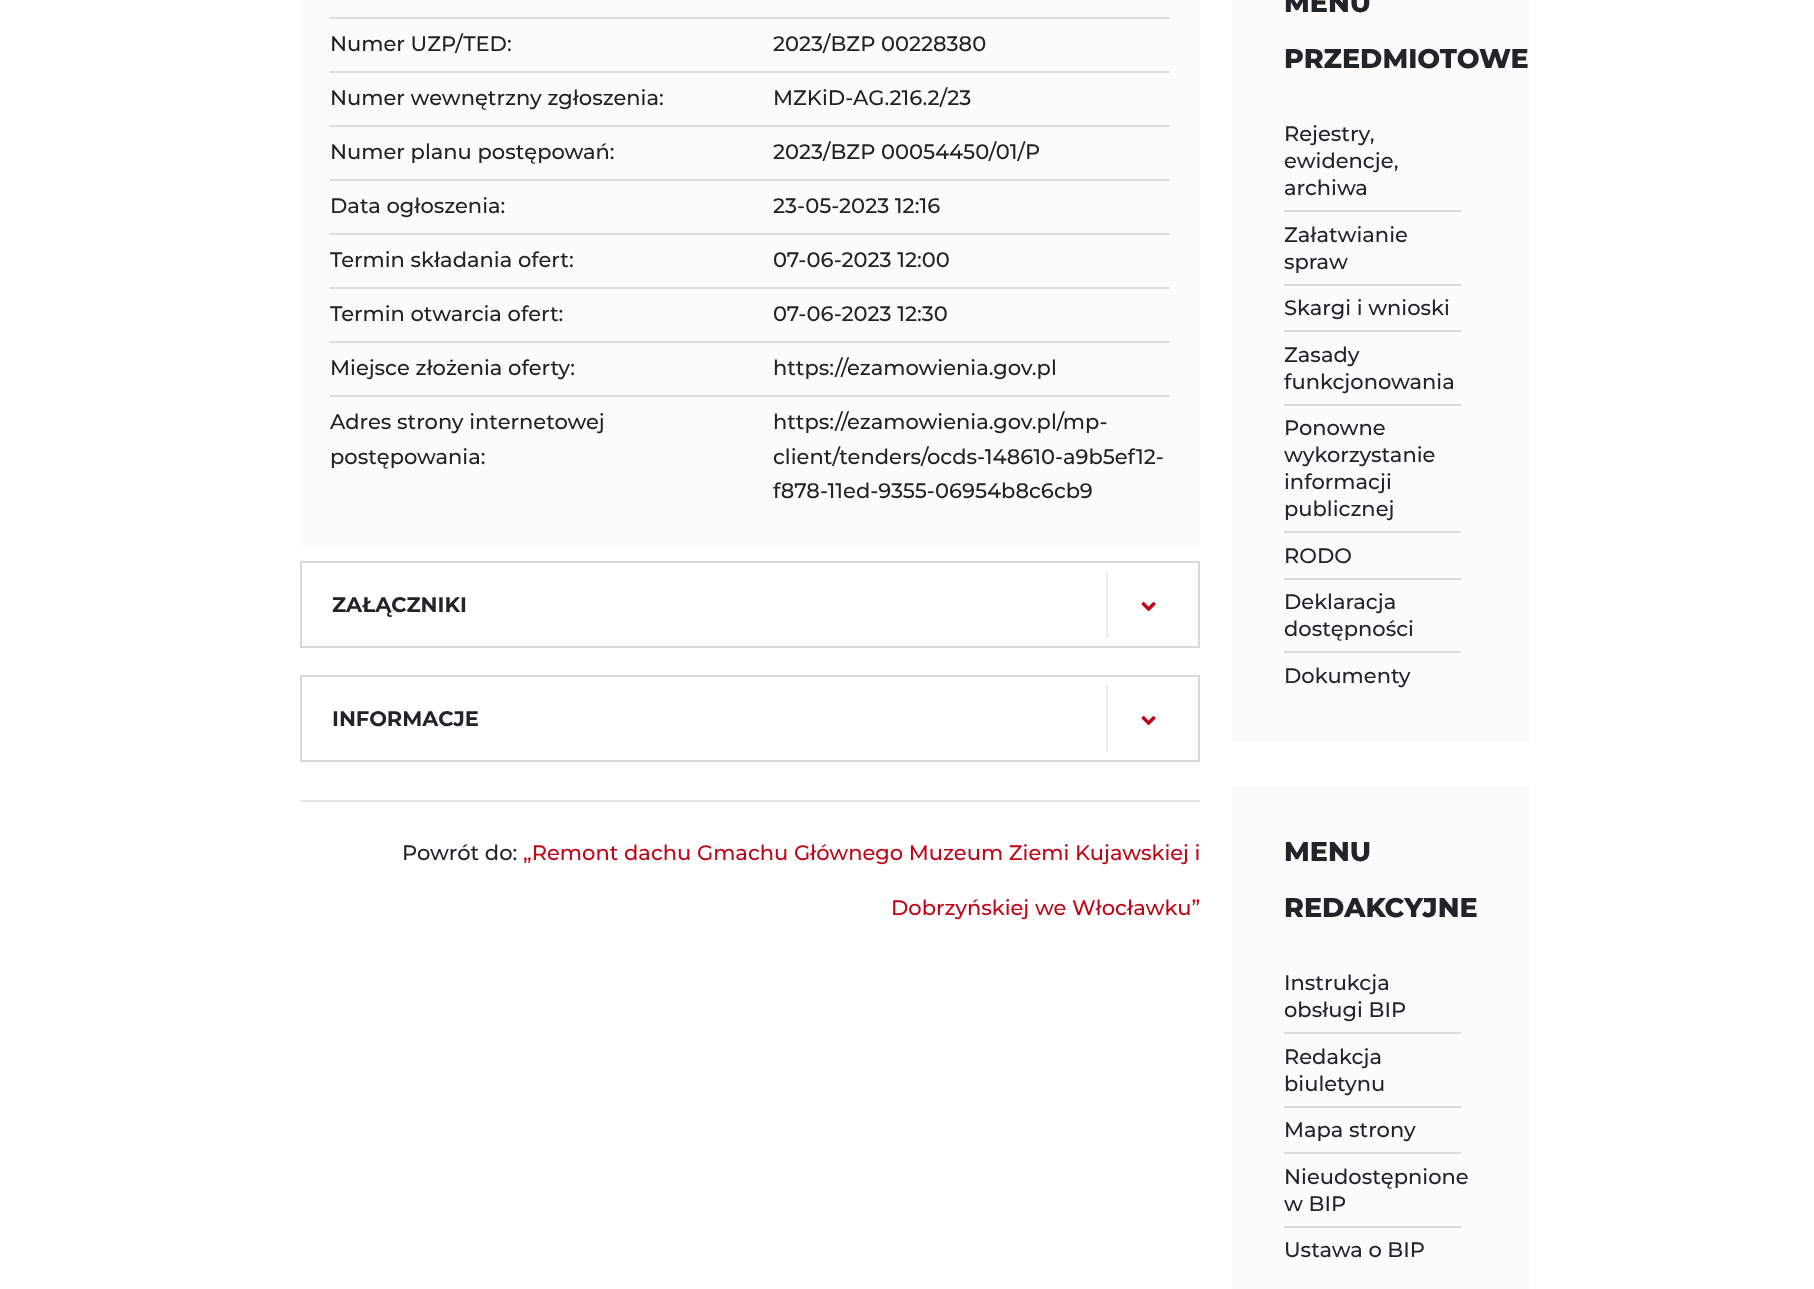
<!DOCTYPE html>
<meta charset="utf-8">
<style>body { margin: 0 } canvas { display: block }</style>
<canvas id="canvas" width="1814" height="1289"></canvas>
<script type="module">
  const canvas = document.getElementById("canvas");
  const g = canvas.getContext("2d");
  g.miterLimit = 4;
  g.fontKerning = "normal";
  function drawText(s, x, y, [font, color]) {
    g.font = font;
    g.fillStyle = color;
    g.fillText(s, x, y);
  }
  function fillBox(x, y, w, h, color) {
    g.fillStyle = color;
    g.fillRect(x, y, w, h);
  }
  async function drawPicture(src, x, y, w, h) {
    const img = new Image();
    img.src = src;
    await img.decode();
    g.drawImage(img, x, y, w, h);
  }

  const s1 = ["500 21px Montserrat", "#222222"];
  const s2 = ["bold 21px Montserrat", "#212529"];
  const s3 = ["500 21px Montserrat", "#212529"];
  const s4 = ["500 21px Montserrat", "#C00518"];
  const s5 = ["800 27px Montserrat", "#212529"];

  fillBox(0, 0, 1814, 1289, "#FFFFFF");
  fillBox(300, 0, 900, 548, "#FBFBFB");
  fillBox(330, 17, 840, 2, "#DCDCDC");
  fillBox(330, 71, 840, 2, "#DCDCDC");
  drawText("Numer UZP/TED:", 330, 51, s1);
  drawText("2023/BZP 00228380", 773, 51, s1);
  fillBox(330, 125, 840, 2, "#DCDCDC");
  drawText("Numer wewnętrzny zgłoszenia:", 330, 105, s1);
  drawText("MZKiD-AG.216.2/23", 773, 105, s1);
  fillBox(330, 179, 840, 2, "#DCDCDC");
  drawText("Numer planu postępowań:", 330, 159, s1);
  drawText("2023/BZP 00054450/01/P", 773, 159, s1);
  fillBox(330, 233, 840, 2, "#DCDCDC");
  drawText("Data ogłoszenia:", 330, 213, s1);
  drawText("23-05-2023 12:16", 773, 213, s1);
  fillBox(330, 287, 840, 2, "#DCDCDC");
  drawText("Termin składania ofert:", 330, 267, s1);
  drawText("07-06-2023 12:00", 773, 267, s1);
  fillBox(330, 341, 840, 2, "#DCDCDC");
  drawText("Termin otwarcia ofert:", 330, 321, s1);
  drawText("07-06-2023 12:30", 773, 321, s1);
  fillBox(330, 395, 840, 2, "#DCDCDC");
  drawText("Miejsce złożenia oferty:", 330, 375, s1);
  drawText("https://ezamowienia.gov.pl", 773, 375, s1);
  drawText("Adres strony internetowej", 330, 429, s1);
  drawText("postępowania:", 330, 464, s1);
  drawText("https://ezamowienia.gov.pl/mp-", 773, 429, s1);
  drawText("client/tenders/ocds-148610-a9b5ef12-", 773, 464, s1);
  drawText("f878-11ed-9355-06954b8c6cb9", 773, 498, s1);
  g.strokeStyle = "#D8D8D8";
  g.lineWidth = 2;
  g.strokeRect(301, 562, 898, 85);
  drawText("ZAŁĄCZNIKI", 332, 612, s2);
  fillBox(1106, 572, 2, 66, "#ECECEC");
  await drawPicture("pic1.png", 1141, 602, 15, 10);
  g.strokeRect(301, 676, 898, 85);
  drawText("INFORMACJE", 332, 726, s2);
  fillBox(1106, 686, 2, 66, "#ECECEC");
  await drawPicture("pic1.png", 1141, 716, 15, 10);
  fillBox(300, 800, 900, 2, "#E6E6E6");
  drawText("Powrót do:", 402, 860, s3);
  drawText("„Remont dachu Gmachu Głównego Muzeum Ziemi Kujawskiej i", 523, 860, s4);
  drawText("Dobrzyńskiej we Włocławku”", 891, 915, s4);
  fillBox(1232, 0, 297, 743, "#FBFBFB");
  drawText("MENU", 1284, 12, s5);
  drawText("PRZEDMIOTOWE", 1284, 68, s5);
  fillBox(1284, 210, 177, 2, "#DCDCDC");
  drawText("Rejestry,", 1284, 141, s3);
  drawText("ewidencje,", 1284, 168, s3);
  drawText("archiwa", 1284, 195, s3);
  fillBox(1284, 284, 177, 2, "#DCDCDC");
  drawText("Załatwianie", 1284, 242, s3);
  drawText("spraw", 1284, 269, s3);
  fillBox(1284, 330, 177, 2, "#DCDCDC");
  drawText("Skargi i wnioski", 1284, 315, s3);
  fillBox(1284, 404, 177, 2, "#DCDCDC");
  drawText("Zasady", 1284, 362, s3);
  drawText("funkcjonowania", 1284, 389, s3);
  fillBox(1284, 531, 177, 2, "#DCDCDC");
  drawText("Ponowne", 1284, 435, s3);
  drawText("wykorzystanie", 1284, 462, s3);
  drawText("informacji", 1284, 489, s3);
  drawText("publicznej", 1284, 516, s3);
  fillBox(1284, 578, 177, 2, "#DCDCDC");
  drawText("RODO", 1284, 563, s3);
  fillBox(1284, 651, 177, 2, "#DCDCDC");
  drawText("Deklaracja", 1284, 609, s3);
  drawText("dostępności", 1284, 636, s3);
  drawText("Dokumenty", 1284, 683, s3);
  fillBox(1232, 786, 297, 503, "#FBFBFB");
  drawText("MENU", 1284, 861, s5);
  drawText("REDAKCYJNE", 1284, 917, s5);
  fillBox(1284, 1032, 177, 2, "#DCDCDC");
  drawText("Instrukcja", 1284, 990, s3);
  drawText("obsługi BIP", 1284, 1017, s3);
  fillBox(1284, 1106, 177, 2, "#DCDCDC");
  drawText("Redakcja", 1284, 1064, s3);
  drawText("biuletynu", 1284, 1091, s3);
  fillBox(1284, 1152, 177, 2, "#DCDCDC");
  drawText("Mapa strony", 1284, 1137, s3);
  fillBox(1284, 1226, 177, 2, "#DCDCDC");
  drawText("Nieudostępnione", 1284, 1184, s3);
  drawText("w BIP", 1284, 1211, s3);
  drawText("Ustawa o BIP", 1284, 1257, s3);
</script>
